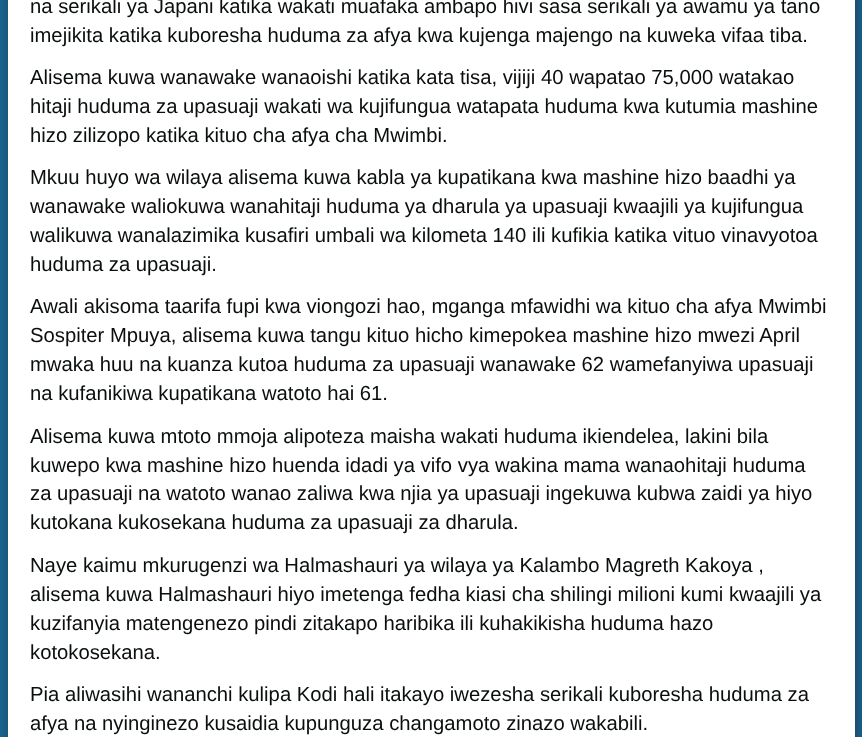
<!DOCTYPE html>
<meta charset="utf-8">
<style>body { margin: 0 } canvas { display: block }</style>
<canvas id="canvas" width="862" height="737"></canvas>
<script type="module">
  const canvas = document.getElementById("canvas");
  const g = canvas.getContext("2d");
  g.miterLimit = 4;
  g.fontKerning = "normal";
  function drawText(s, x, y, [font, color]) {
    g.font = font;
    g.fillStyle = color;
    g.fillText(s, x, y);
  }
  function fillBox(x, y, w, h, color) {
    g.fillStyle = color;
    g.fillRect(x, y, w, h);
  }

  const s1 = ["20.25px Liberation Sans", "#0A0E0E"];

  fillBox(0, 0, 862, 737, "#14689C");
  g.fillStyle = "rgba(50, 50, 50, 0.75)";
  g.filter = "blur(7.5px)";
  g.beginPath();
  g.rect(9, -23, 848, 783);
  g.fill();
  g.filter = "none";
  fillBox(8, 0, 847, 737, "#FFFFFF");
  drawText("na serikali ya Japani katika wakati muafaka ambapo hivi sasa serikali ya awamu ya tano", 30, 13, s1);
  drawText("imejikita katika kuboresha huduma za afya kwa kujenga majengo na kuweka vifaa tiba.", 30, 42, s1);
  drawText("Alisema kuwa wanawake wanaoishi katika kata tisa, vijiji 40 wapatao 75,000 watakao", 30, 84, s1);
  drawText("hitaji huduma za upasuaji wakati wa kujifungua watapata huduma kwa kutumia mashine", 30, 113, s1);
  drawText("hizo zilizopo katika kituo cha afya cha Mwimbi.", 30, 142, s1);
  drawText("Mkuu huyo wa wilaya alisema kuwa kabla ya kupatikana kwa mashine hizo baadhi ya", 30, 184, s1);
  drawText("wanawake waliokuwa wanahitaji huduma ya dharula ya upasuaji kwaajili ya kujifungua", 30, 213, s1);
  drawText("walikuwa wanalazimika kusafiri umbali wa kilometa 140 ili kufikia katika vituo vinavyotoa", 30, 242, s1);
  drawText("huduma za upasuaji.", 30, 271, s1);
  drawText("Awali akisoma taarifa fupi kwa viongozi hao, mganga mfawidhi wa kituo cha afya Mwimbi", 30, 313, s1);
  drawText("Sospiter Mpuya, alisema kuwa tangu kituo hicho kimepokea mashine hizo mwezi April", 30, 342, s1);
  drawText("mwaka huu na kuanza kutoa huduma za upasuaji wanawake 62 wamefanyiwa upasuaji", 30, 371, s1);
  drawText("na kufanikiwa kupatikana watoto hai 61.", 30, 400, s1);
  drawText("Alisema kuwa mtoto mmoja alipoteza maisha wakati huduma ikiendelea, lakini bila", 30, 443, s1);
  drawText("kuwepo kwa mashine hizo huenda idadi ya vifo vya wakina mama wanaohitaji huduma", 30, 472, s1);
  drawText("za upasuaji na watoto wanao zaliwa kwa njia ya upasuaji ingekuwa kubwa zaidi ya hiyo", 30, 500, s1);
  drawText("kutokana kukosekana huduma za upasuaji za dharula.", 30, 529, s1);
  drawText("Naye kaimu mkurugenzi wa Halmashauri ya wilaya ya Kalambo Magreth Kakoya ,", 30, 572, s1);
  drawText("alisema kuwa Halmashauri hiyo imetenga fedha kiasi cha shilingi milioni kumi kwaajili ya", 30, 601, s1);
  drawText("kuzifanyia matengenezo pindi zitakapo haribika ili kuhakikisha huduma hazo", 30, 630, s1);
  drawText("kotokosekana.", 30, 659, s1);
  drawText("Pia aliwasihi wananchi kulipa Kodi hali itakayo iwezesha serikali kuboresha huduma za", 30, 701, s1);
  drawText("afya na nyinginezo kusaidia kupunguza changamoto zinazo wakabili.", 30, 730, s1);
</script>
